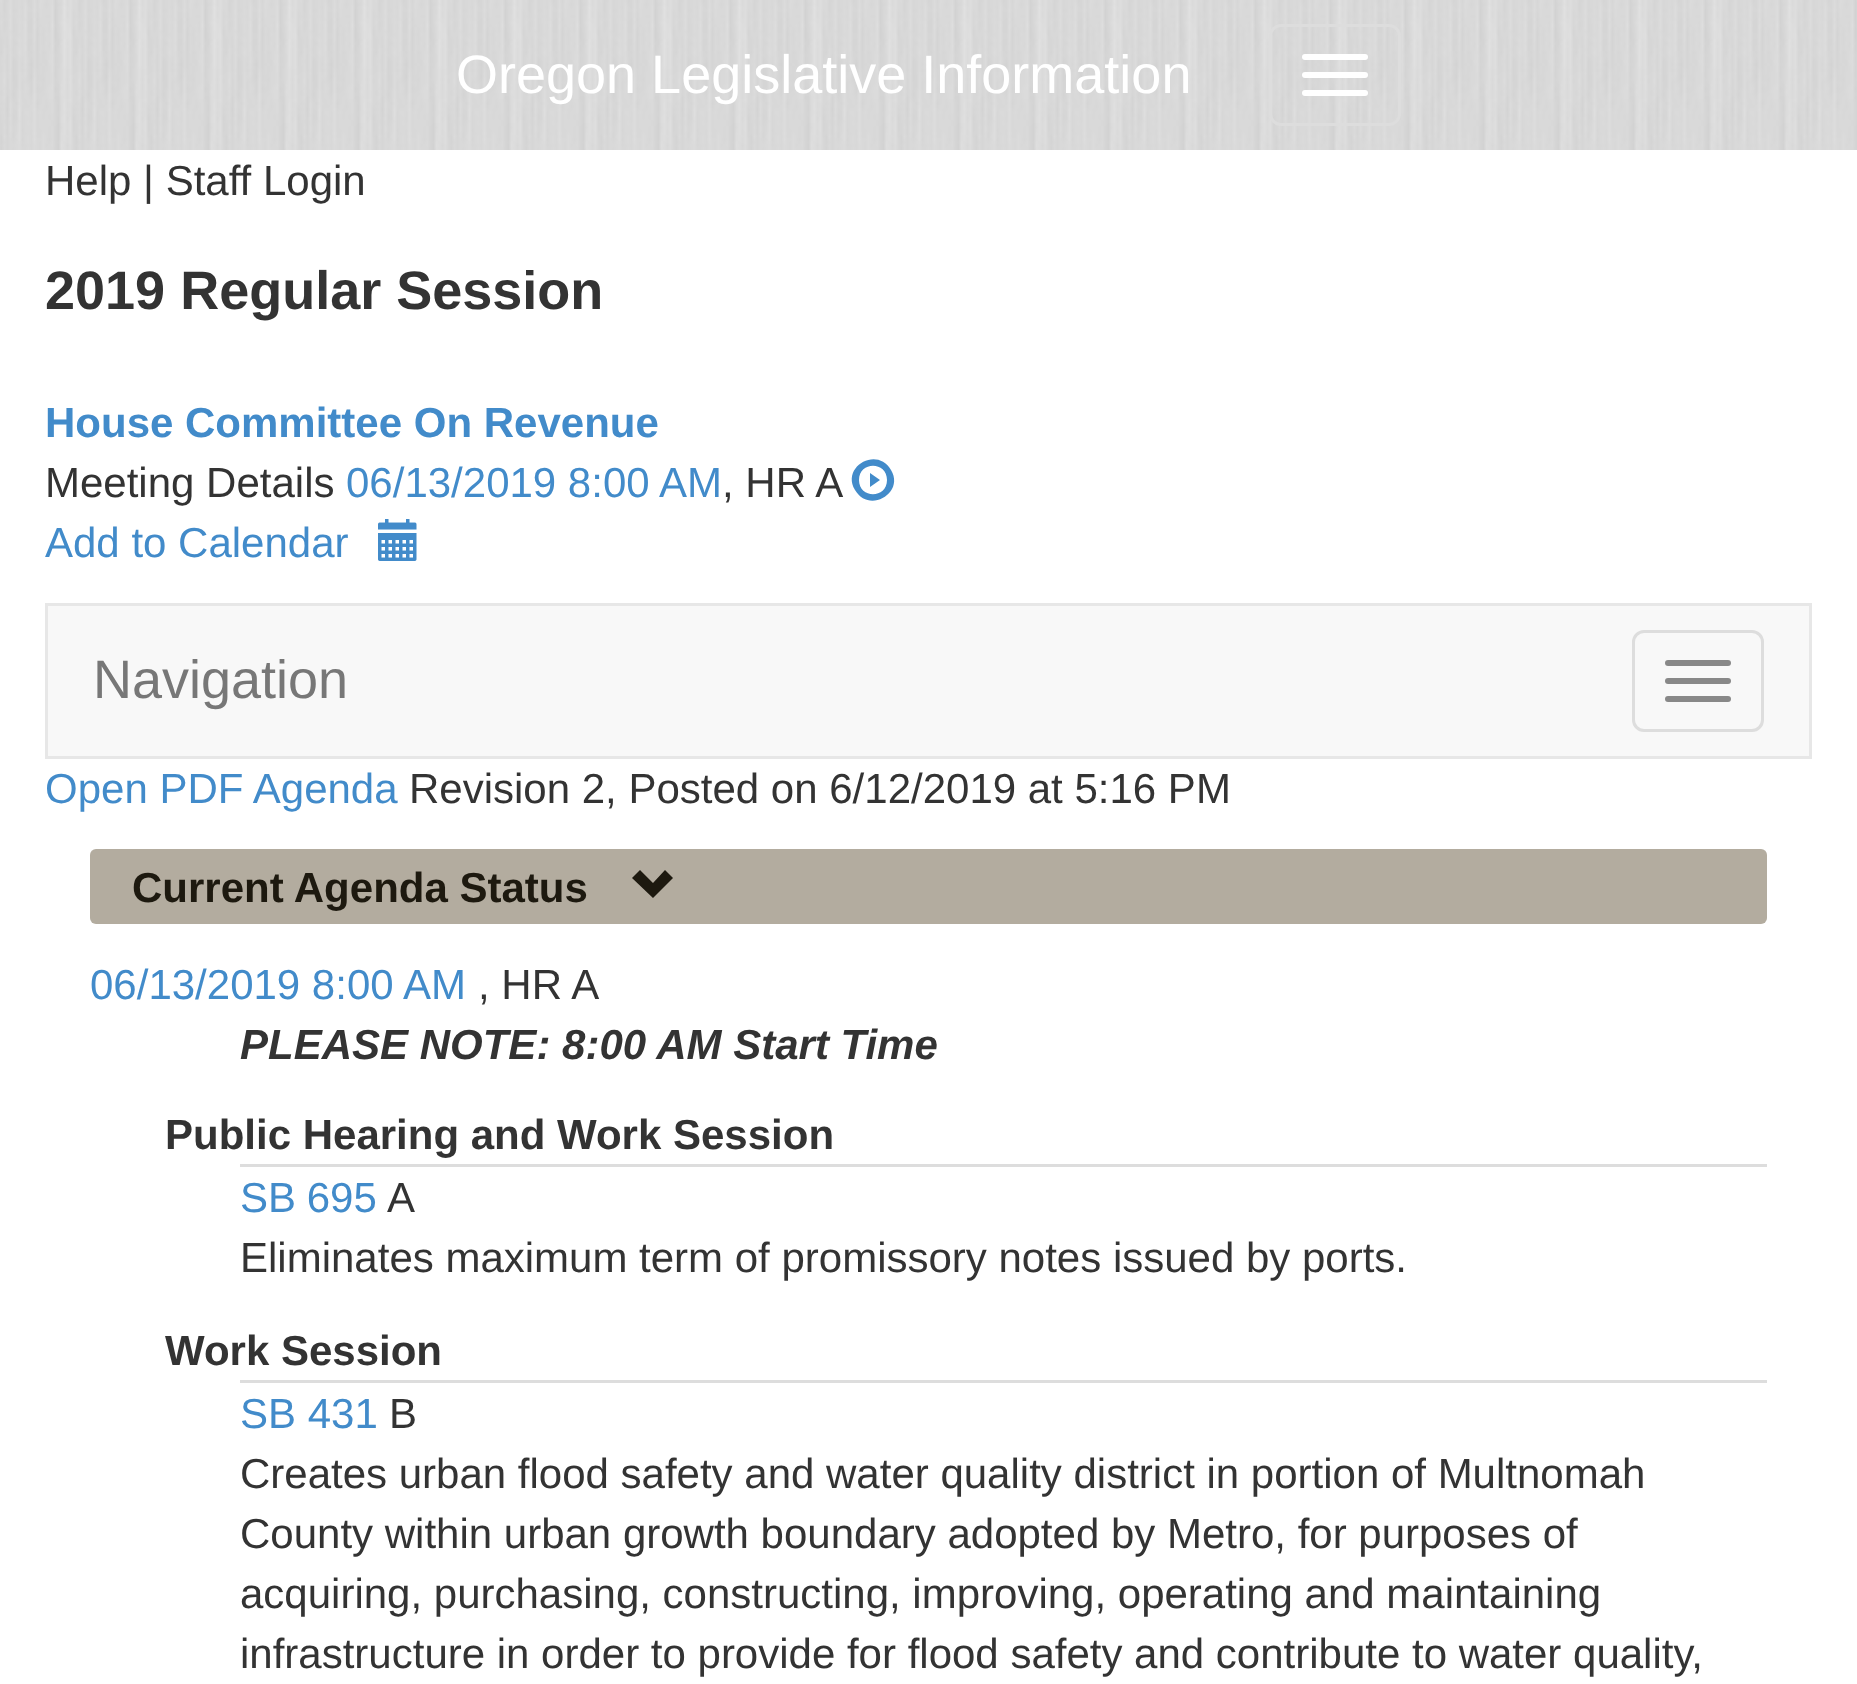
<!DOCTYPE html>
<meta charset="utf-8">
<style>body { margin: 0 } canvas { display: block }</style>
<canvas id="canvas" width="1857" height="1684"></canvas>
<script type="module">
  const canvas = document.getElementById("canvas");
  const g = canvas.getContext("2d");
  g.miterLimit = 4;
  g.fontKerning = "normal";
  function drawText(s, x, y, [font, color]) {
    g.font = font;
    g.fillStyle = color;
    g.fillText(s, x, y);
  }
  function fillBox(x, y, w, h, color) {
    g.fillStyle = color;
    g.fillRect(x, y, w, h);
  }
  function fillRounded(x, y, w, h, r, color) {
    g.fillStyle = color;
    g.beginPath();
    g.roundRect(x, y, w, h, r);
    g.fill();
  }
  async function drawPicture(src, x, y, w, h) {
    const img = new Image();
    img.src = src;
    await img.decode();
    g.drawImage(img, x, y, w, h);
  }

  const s1 = ["54px Liberation Sans", "#FFFFFF"];
  const s2 = ["42px Liberation Sans", "#333333"];
  const s3 = ["bold 54px Liberation Sans", "#333333"];
  const s4 = ["bold 42px Liberation Sans", "#428BCA"];
  const s5 = ["42px Liberation Sans", "#428BCA"];
  const s6 = ["54px Liberation Sans", "#777777"];
  const s7 = ["bold 42px Liberation Sans", "#1D190F"];
  const s8 = ["italic bold 42px Liberation Sans", "#333333"];
  const s9 = ["bold 42px Liberation Sans", "#333333"];

  fillBox(0, 0, 1857, 1684, "#FFFFFF");
  await drawPicture("pic1.png", 0, 0, 1857, 150);
  drawText("Oregon Legislative Information", 456, 93, s1);
  g.beginPath();
  g.roundRect(1270.5, 25.5, 129, 99, 10.5);
  g.strokeStyle = "#DDDDDD";
  g.lineWidth = 3;
  g.stroke();
  fillRounded(1302, 54, 66, 6, 3, "#FFFFFF");
  fillRounded(1302, 72, 66, 6, 3, "#FFFFFF");
  fillRounded(1302, 90, 66, 6, 3, "#FFFFFF");
  drawText("Help | Staff Login", 45, 195, s2);
  drawText("2019 Regular Session", 45, 309, s3);
  drawText("House Committee On Revenue", 45, 437, s4);
  drawText("Meeting Details", 45, 497, s2);
  drawText("06/13/2019 8:00 AM", 346, 497, s5);
  drawText(", HR A", 722, 497, s2);
  g.fillStyle = "#428BCA";
  g.beginPath();
  g.moveTo(855, 490);
  g.bezierCurveTo(841, 467, 877, 446, 891, 470);
  g.bezierCurveTo(905, 493, 869, 514, 855, 490);
  g.closePath();
  g.moveTo(859, 480);
  g.bezierCurveTo(859, 499, 887, 499, 887, 480);
  g.bezierCurveTo(887, 461, 859, 461, 859, 480);
  g.closePath();
  g.moveTo(870, 487);
  g.lineTo(870, 473);
  g.lineTo(880, 480);
  g.closePath();
  g.fill();
  drawText("Add to Calendar", 45, 557, s5);
  await drawPicture("pic2.png", 378, 519, 39, 42);
  g.fillStyle = "#F8F8F8";
  g.beginPath();
  g.rect(46.5, 604.5, 1764, 153);
  g.fill();
  g.strokeStyle = "#E7E7E7";
  g.stroke();
  drawText("Navigation", 93, 698, s6);
  g.beginPath();
  g.roundRect(1633.5, 631.5, 129, 99, 10.5);
  g.strokeStyle = "#DDDDDD";
  g.stroke();
  fillRounded(1665, 660, 66, 6, 3, "#888888");
  fillRounded(1665, 678, 66, 6, 3, "#888888");
  fillRounded(1665, 696, 66, 6, 3, "#888888");
  drawText("Open PDF Agenda", 45, 803, s5);
  drawText("Revision 2, Posted on 6/12/2019 at 5:16 PM", 409, 803, s2);
  fillRounded(90, 849, 1677, 75, 6, "#B3AC9F");
  drawText("Current Agenda Status", 132, 902, s7);
  g.beginPath();
  g.moveTo(632, 878);
  g.lineTo(653, 898);
  g.lineTo(673, 878);
  g.lineTo(665, 870);
  g.lineTo(653, 883);
  g.lineTo(640, 870);
  g.closePath();
  g.fill();
  drawText("06/13/2019 8:00 AM", 90, 999, s5);
  drawText(", HR A", 478, 999, s2);
  drawText("PLEASE NOTE: 8:00 AM Start Time", 240, 1059, s8);
  drawText("Public Hearing and Work Session", 165, 1149, s9);
  fillBox(240, 1164, 1527, 3, "#DDDDDD");
  g.wordSpacing = "-1px";
  drawText("SB 695", 240, 1212, s5);
  g.wordSpacing = "0px";
  drawText("A", 387, 1212, s2);
  drawText("Eliminates maximum term of promissory notes issued by ports.", 240, 1272, s2);
  drawText("Work Session", 165, 1365, s9);
  fillBox(240, 1380, 1527, 3, "#DDDDDD");
  drawText("SB 431", 240, 1428, s5);
  drawText("B", 389, 1428, s2);
  drawText("Creates urban flood safety and water quality district in portion of Multnomah", 240, 1488, s2);
  drawText("County within urban growth boundary adopted by Metro, for purposes of", 240, 1548, s2);
  drawText("acquiring, purchasing, constructing, improving, operating and maintaining", 240, 1608, s2);
  drawText("infrastructure in order to provide for flood safety and contribute to water quality,", 240, 1668, s2);
</script>
